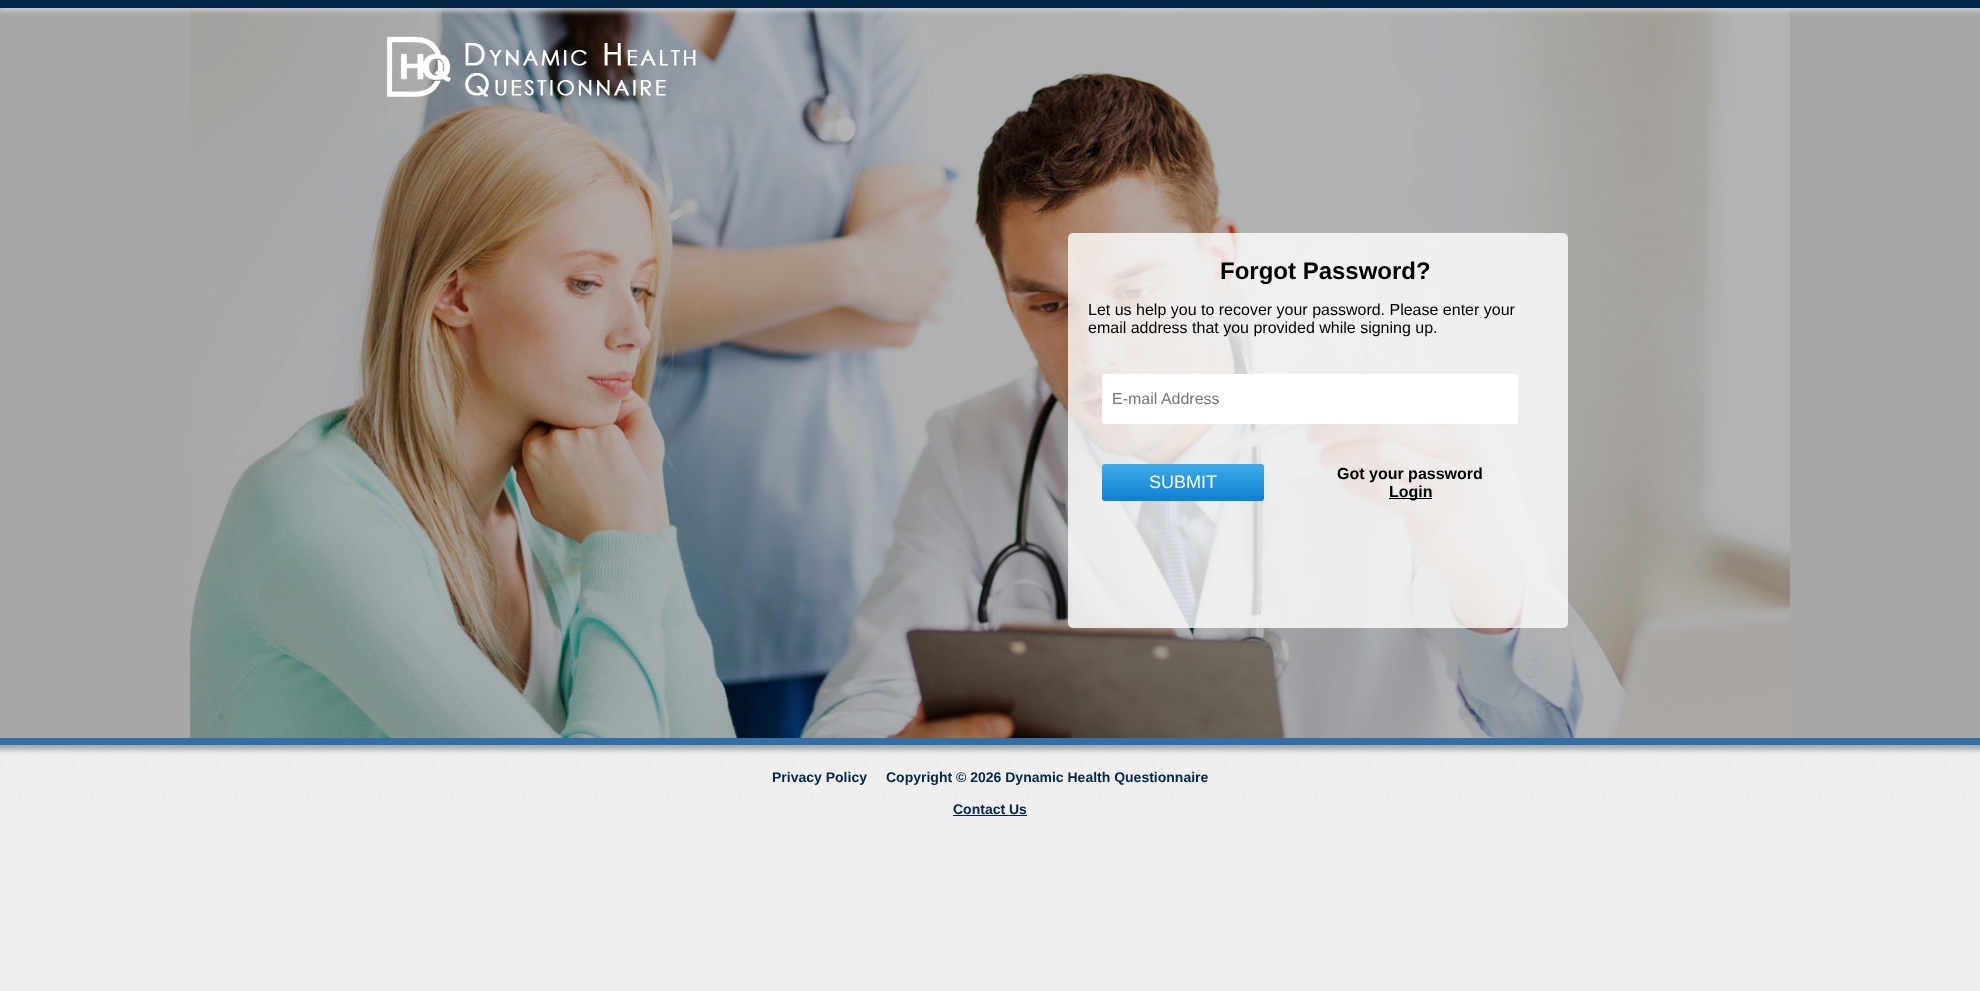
<!DOCTYPE html>
<meta charset="utf-8">
<style>body { margin: 0 } canvas { display: block }</style>
<canvas id="canvas" width="1980" height="991"></canvas>
<script type="module">
  const canvas = document.getElementById("canvas");
  const g = canvas.getContext("2d");
  g.miterLimit = 4;
  g.fontKerning = "normal";
  function drawText(s, x, y, [font, color]) {
    g.font = font;
    g.fillStyle = color;
    g.fillText(s, x, y);
  }
  function fillBox(x, y, w, h, color) {
    g.fillStyle = color;
    g.fillRect(x, y, w, h);
  }
  function fillRounded(x, y, w, h, r, color) {
    g.fillStyle = color;
    g.beginPath();
    g.roundRect(x, y, w, h, r);
    g.fill();
  }
  async function drawPicture(src, x, y, w, h) {
    const img = new Image();
    img.src = src;
    await img.decode();
    g.drawImage(img, x, y, w, h);
  }
  let gradient;

  const s1 = ["bold 24px Liberation Sans", "#000000"];
  const s2 = ["16px Liberation Sans", "#000000"];
  const s3 = ["16px Liberation Sans", "#757575"];
  const s4 = ["18px Liberation Sans", "#FFFFFF"];
  const s5 = ["bold 16px Liberation Sans", "#000000"];
  const s6 = ["bold 14px Liberation Sans", "#022648"];

  fillBox(0, 0, 1980, 991, "#EFEFEF");
  fillBox(0, 8, 1980, 730, "#A7A7A7");
  await drawPicture("pic1.png", 190, 8, 1600, 730);
  g.fillStyle = "#CCCCCC";
  g.filter = "blur(2.5px)";
  g.beginPath();
  g.rect(-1, 1, 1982, 10);
  g.fill();
  g.filter = "none";
  fillBox(0, 0, 1980, 8, "#022648");
  await drawPicture("pic2.png", 387, 36, 309, 62);
  fillBox(0, 738, 1980, 7, "#326EA7");
  fillRounded(1068, 233, 500, 395, 5, "rgba(255, 255, 255, 0.8)");
  drawText("Forgot Password?", 1220, 279, s1);
  drawText("Let us help you to recover your password. Please enter your", 1088, 315, s2);
  drawText("email address that you provided while signing up.", 1088, 333, s2);
  fillRounded(1102, 374, 416, 50, 3, "#FFFFFF");
  drawText("E-mail Address", 1112, 404, s3);
  gradient = g.createLinearGradient(1183, 464, 1183, 501);
  gradient.addColorStop(0, "#3EABE9");
  gradient.addColorStop(1, "#107FD1");
  g.fillStyle = gradient;
  g.beginPath();
  g.roundRect(1102, 464, 162, 37, 3);
  g.fill();
  drawText("SUBMIT", 1149, 488, s4);
  drawText("Got your password", 1337, 479, s5);
  fillBox(1389, 498, 43, 1, "#000000");
  drawText("Login", 1389, 497, s5);
  await drawPicture("pic3.png", 0, 745, 1980, 77);
  drawText("Privacy Policy", 772, 782, s6);
  drawText("Copyright © 2026 Dynamic Health Questionnaire", 886, 782, s6);
  drawText("Contact Us", 953, 814, s6);
  fillBox(953, 815, 74, 1, "#022648");
</script>
